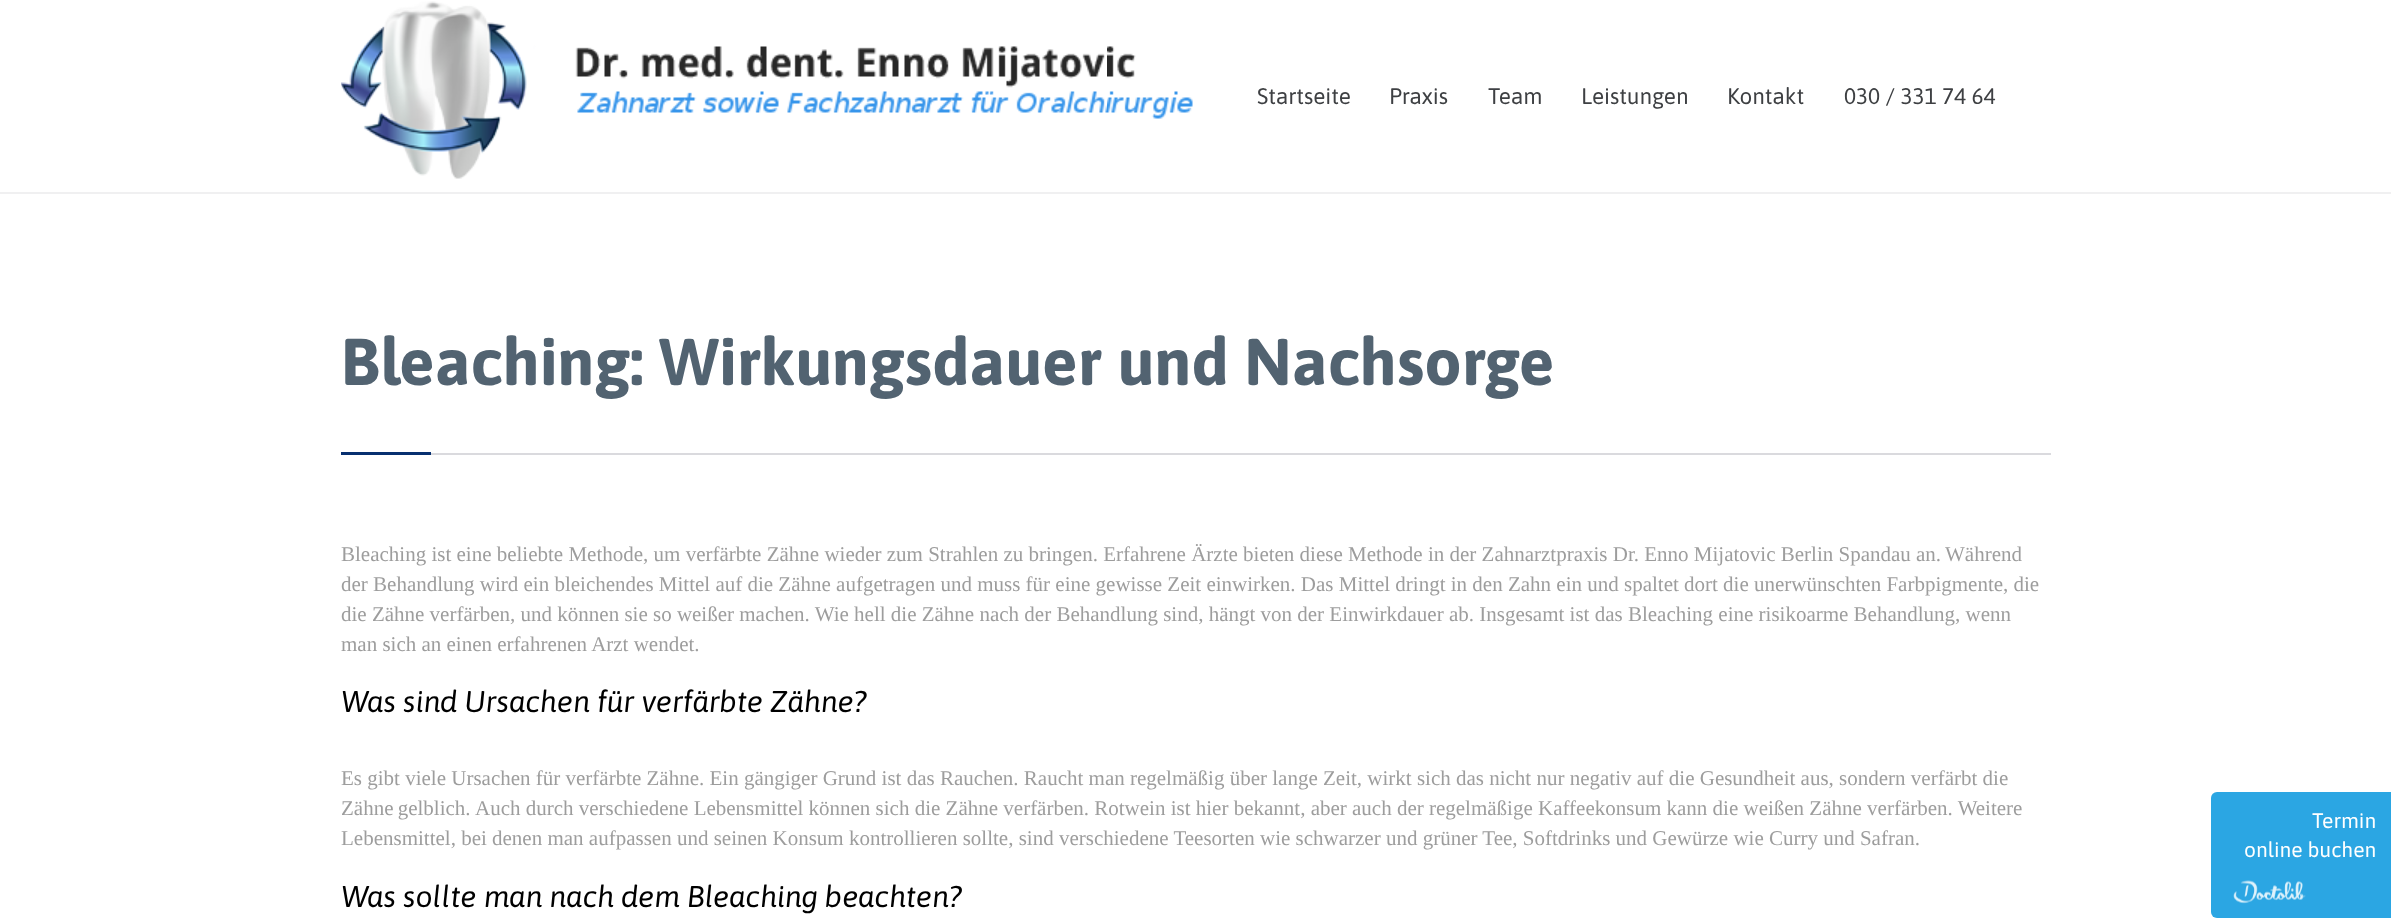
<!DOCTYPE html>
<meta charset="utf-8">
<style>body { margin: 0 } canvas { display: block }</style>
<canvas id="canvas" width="2391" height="918"></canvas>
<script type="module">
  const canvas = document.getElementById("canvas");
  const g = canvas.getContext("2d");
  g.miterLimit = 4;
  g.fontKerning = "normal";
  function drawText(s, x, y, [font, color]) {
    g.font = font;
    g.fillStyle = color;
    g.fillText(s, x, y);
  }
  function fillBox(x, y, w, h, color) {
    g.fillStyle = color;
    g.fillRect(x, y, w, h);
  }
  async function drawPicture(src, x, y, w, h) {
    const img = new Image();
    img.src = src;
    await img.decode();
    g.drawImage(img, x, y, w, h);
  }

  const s1 = ["22.5px Asap", "#3E4043"];
  const s2 = ["bold 66px Asap", "#526371"];
  const s3 = ["21px Liberation Serif", "#9D9D9D"];
  const s4 = ["italic 30px Asap", "#000000"];
  const s5 = ["21px Asap", "#FFFFFF"];

  fillBox(0, 0, 2391, 918, "#FFFFFF");
  fillBox(0, 192, 2391, 2, "#F0F0F1");
  await drawPicture("pic1.png", 341, 1, 852, 178);
  drawText("Startseite", 1257, 104, s1);
  drawText("Praxis", 1389, 104, s1);
  drawText("Team", 1488, 104, s1);
  drawText("Leistungen", 1581, 104, s1);
  drawText("Kontakt", 1727, 104, s1);
  drawText("030 / 331 74 64", 1844, 104, s1);
  fillBox(431, 453, 1620, 2, "#DADADE");
  drawText("Bleaching: Wirkungsdauer und Nachsorge", 341, 385, s2);
  fillBox(341, 452, 90, 3, "#073070");
  drawText("Bleaching ist eine beliebte Methode, um verfärbte Zähne wieder zum Strahlen zu bringen. Erfahrene Ärzte bieten diese Methode in der Zahnarztpraxis Dr. Enno Mijatovic Berlin Spandau an.", 341, 561, s3);
  drawText("Während", 1945, 561, s3);
  drawText("der Behandlung wird ein bleichendes Mittel auf die Zähne aufgetragen und muss für eine gewisse Zeit einwirken. Das Mittel dringt in den Zahn ein und spaltet dort die unerwünschten Farbpigmente, die", 341, 591, s3);
  drawText("die Zähne verfärben, und können sie so weißer machen. Wie hell die Zähne nach der Behandlung sind, hängt von der Einwirkdauer ab. Insgesamt ist das Bleaching eine risikoarme Behandlung, wenn", 341, 621, s3);
  drawText("man sich an einen erfahrenen Arzt wendet.", 341, 651, s3);
  drawText("Was sind Ursachen für verfärbte Zähne?", 341, 712, s4);
  drawText("Es gibt viele Ursachen für verfärbte Zähne. Ein gängiger Grund ist das Rauchen. Raucht man regelmäßig über lange Zeit, wirkt sich das nicht nur negativ auf die Gesundheit aus, sondern verfärbt die", 341, 785, s3);
  g.wordSpacing = "-1px";
  drawText("Zähne gelblich.", 341, 815, s3);
  g.wordSpacing = "0px";
  drawText("Auch durch verschiedene Lebensmittel können sich die Zähne verfärben. Rotwein ist hier bekannt, aber auch der regelmäßige Kaffeekonsum kann die weißen Zähne verfärben. Weitere", 475, 815, s3);
  drawText("Lebensmittel, bei denen man aufpassen und seinen Konsum kontrollieren sollte, sind verschiedene Teesorten wie schwarzer und grüner Tee, Softdrinks und Gewürze wie Curry und Safran.", 341, 845, s3);
  drawText("Was sollte man nach dem Bleaching beachten?", 341, 907, s4);
  g.fillStyle = "#2BA6E3";
  g.beginPath();
  g.roundRect(2211, 792, 180, 126, [6, 0, 0, 6]);
  g.fill();
  drawText("Termin", 2312, 828, s5);
  drawText("online buchen", 2244, 857, s5);
  await drawPicture("pic2.png", 2233, 880, 73, 24);
</script>
